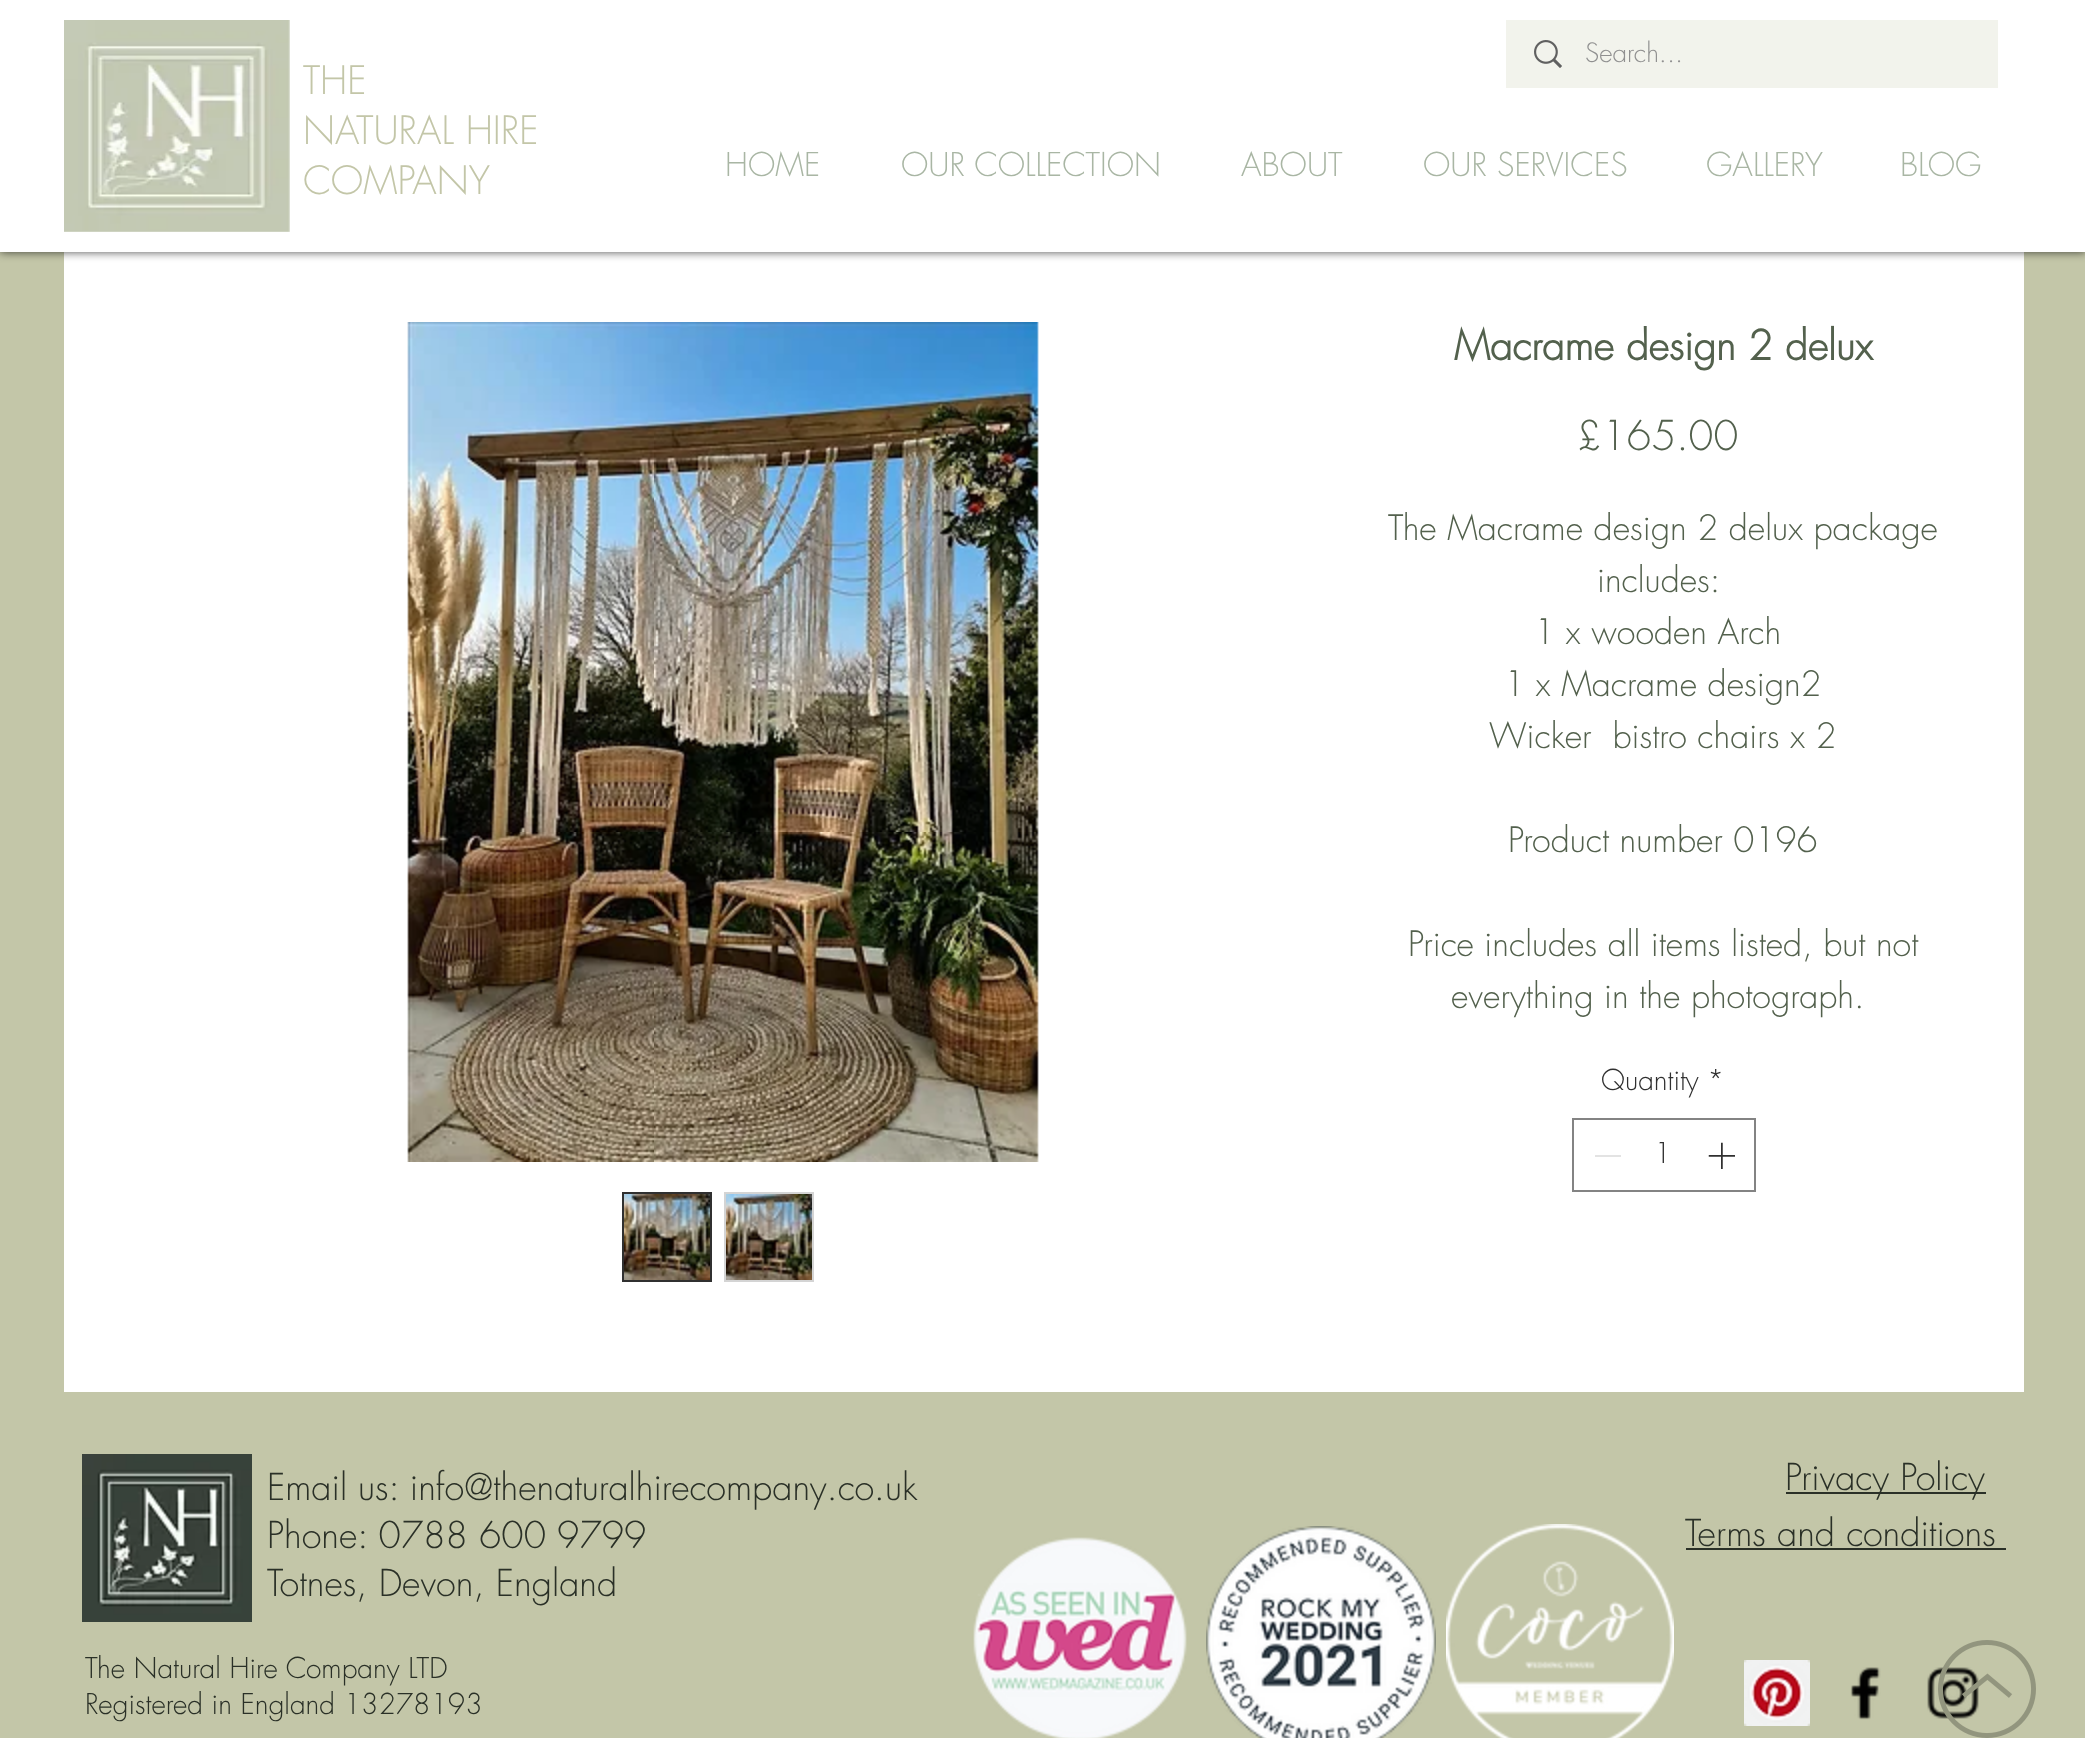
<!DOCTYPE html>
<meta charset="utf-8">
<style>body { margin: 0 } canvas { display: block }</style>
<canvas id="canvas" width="2085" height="1738"></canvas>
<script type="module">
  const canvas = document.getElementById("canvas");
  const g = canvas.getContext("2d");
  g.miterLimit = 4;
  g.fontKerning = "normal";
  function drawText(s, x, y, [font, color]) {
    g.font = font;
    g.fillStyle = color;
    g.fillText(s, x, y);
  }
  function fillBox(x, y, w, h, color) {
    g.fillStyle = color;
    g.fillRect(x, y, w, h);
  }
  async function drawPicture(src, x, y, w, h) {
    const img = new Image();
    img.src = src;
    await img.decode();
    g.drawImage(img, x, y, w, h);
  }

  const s1 = ["300 26px futura", "#909090"];
  const s2 = ["300 38px futura", "#C3C6A8"];
  const s3 = ["300 32px futura", "#A9B6A4"];
  const s4 = ["bold 40px futura", "#53614D"];
  const s5 = ["300 40px futura", "#53614D"];
  const s6 = ["300 34px futura", "#53614D"];
  const s7 = ["300 28px futura", "#303030"];
  const s8 = ["300 36px futura", "#2A3027"];
  const s9 = ["300 28px futura", "#2A3027"];

  fillBox(0, 0, 2085, 1738, "#C3C6A8");
  fillBox(64, 252, 1960, 1140, "#FFFFFF");
  g.fillStyle = "rgba(0, 0, 0, 0.7)";
  g.filter = "blur(5px)";
  g.beginPath();
  g.rect(0, 0, 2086, 252);
  g.fill();
  g.filter = "none";
  fillBox(0, 0, 2085, 252, "#FFFFFF");
  await drawPicture("pic1.png", 64, 20, 226, 212);
  fillBox(1506, 20, 492, 68, "#F2F3EC");
  await drawPicture("pic2.png", 1534, 40, 28, 28);
  drawText("Search...", 1585, 62, s1);
  drawText("THE", 303, 94, s2);
  drawText("NATURAL HIRE", 303, 144, s2);
  drawText("COMPANY", 303, 194, s2);
  drawText("HOME", 725, 176, s3);
  drawText("OUR COLLECTION", 901, 176, s3);
  drawText("ABOUT", 1241, 176, s3);
  drawText("OUR SERVICES", 1423, 176, s3);
  drawText("GALLERY", 1706, 176, s3);
  drawText("BLOG", 1900, 176, s3);
  await drawPicture("pic3.png", 407, 322, 632, 840);
  g.strokeStyle = "#303030";
  g.lineWidth = 2;
  g.strokeRect(623, 1193, 88, 88);
  await drawPicture("pic4.png", 624, 1194, 86, 86);
  fillBox(724, 1192, 90, 90, "#D4D4D4");
  await drawPicture("pic5.png", 726, 1194, 86, 86);
  drawText("Macrame design 2 delux", 1454, 360, s4);
  drawText("£165.00", 1577, 450, s5);
  drawText("The Macrame design 2 delux package", 1388, 540, s6);
  drawText("includes:", 1597, 592, s6);
  drawText("1 x wooden Arch", 1534, 644, s6);
  drawText("1 x Macrame design2", 1504, 696, s6);
  drawText("Wicker  bistro chairs x 2", 1489, 748, s6);
  drawText("Product number 0196", 1508, 852, s6);
  drawText("Price includes all items listed, but not", 1408, 956, s6);
  drawText("everything in the photograph.", 1451, 1008, s6);
  drawText("Quantity", 1601, 1090, s7);
  drawText("*", 1707, 1090, s7);
  g.strokeStyle = "#838383";
  g.strokeRect(1573, 1119, 182, 72);
  fillBox(1595, 1155, 26, 2, "#E3E3E3");
  drawText("1", 1654, 1163, s7);
  await drawPicture("pic6.png", 1708, 1142, 27, 27);
  await drawPicture("pic7.png", 82, 1454, 170, 168);
  drawText("Email us: info@thenaturalhirecompany.co.uk", 267, 1500, s8);
  drawText("Phone: 0788 600 9799", 267, 1548, s8);
  drawText("Totnes, Devon, England", 267, 1596, s8);
  fillBox(1786, 1492, 200, 2, "#2A3027");
  drawText("Privacy Policy", 1785, 1490, s8);
  drawText("The Natural Hire Company LTD", 85, 1678, s9);
  drawText("Registered in England 13278193", 85, 1714, s9);
  await drawPicture("pic8.png", 973, 1537, 214, 201);
  await drawPicture("pic9.png", 1206, 1526, 230, 212);
  await drawPicture("pic10.png", 1446, 1524, 228, 214);
  drawText("Terms and conditions", 1685, 1546, s8);
  fillBox(1686, 1548, 320, 2, "#2A3027");
  await drawPicture("pic11.png", 1744, 1660, 66, 66);
  await drawPicture("pic12.png", 1850, 1667, 31, 53);
  await drawPicture("pic13.png", 1927, 1667, 52, 52);
  await drawPicture("pic14.png", 1938, 1640, 98, 98);
</script>
